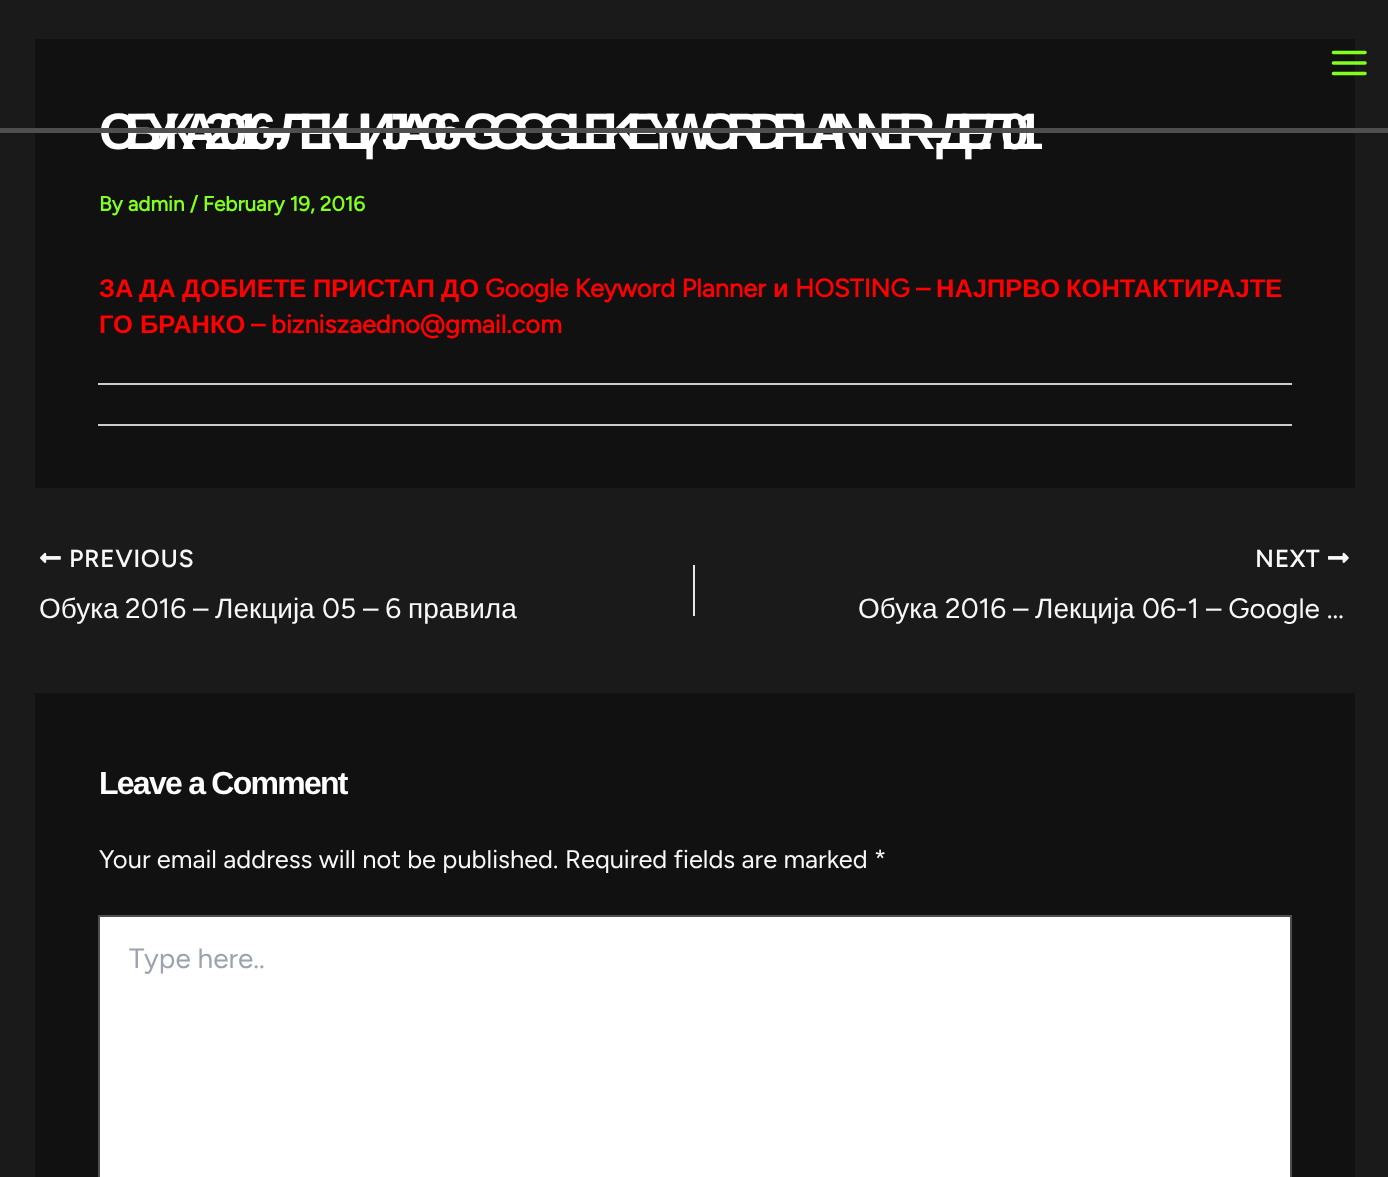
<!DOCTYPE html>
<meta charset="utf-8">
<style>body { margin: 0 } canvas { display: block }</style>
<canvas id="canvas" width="1388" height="1177"></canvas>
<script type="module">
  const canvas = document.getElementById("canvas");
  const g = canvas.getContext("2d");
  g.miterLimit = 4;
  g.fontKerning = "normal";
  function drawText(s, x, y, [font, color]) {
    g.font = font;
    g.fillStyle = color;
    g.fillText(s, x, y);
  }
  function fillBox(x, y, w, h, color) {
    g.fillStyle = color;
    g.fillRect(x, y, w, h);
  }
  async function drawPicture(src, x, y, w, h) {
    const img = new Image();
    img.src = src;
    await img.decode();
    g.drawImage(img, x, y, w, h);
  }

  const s1 = ["bold 51.1px Liberation Sans", "#FFFFFF"];
  const s2 = ["bold 20.75px Figtree", "#82FF1F"];
  const s3 = ["bold 25.5px Liberation Sans", "#FF0000"];
  const s4 = ["bold 25.5px Figtree", "#FF0000"];
  const s5 = ["bold 23.75px Figtree", "#F8F8F8"];
  const s6 = ["28px Liberation Sans", "#F8F8F8"];
  const s7 = ["300 28px Figtree", "#F8F8F8"];
  const s8 = ["bold 32px Liberation Sans", "#FFFFFF"];
  const s9 = ["300 25.5px Figtree", "#F8F8F8"];
  const s10 = ["300 28px Figtree", "#9CA3AF"];

  fillBox(0, 0, 1388, 1177, "#1A1A1A");
  fillBox(35, 39, 1320, 449, "#111111");
  g.letterSpacing = "-14px";
  drawText("ОБУКА 2016 – ЛЕКЦИЈА 06 –GOOGLE KEYWORD PLANNER – ДЕЛ 01", 99, 149, s1);
  fillBox(0, 128, 1388, 5, "#4F4F4F");
  await drawPicture("pic1.png", 1331, 50, 36, 26);
  g.letterSpacing = "0px";
  drawText("By admin / February 19, 2016", 99, 211, s2);
  drawText("ЗА", 99, 297, s3);
  drawText("ДА", 139, 297, s3);
  drawText("ДОБИЕТЕ", 182, 297, s3);
  drawText("ПРИСТАП", 313, 297, s3);
  drawText("ДО", 441, 297, s3);
  drawText("Google Keyword Planner", 485, 297, s4);
  drawText("и", 773, 297, s3);
  drawText("HOSTING –", 795, 297, s4);
  drawText("НАЈПРВО", 936, 297, s3);
  drawText("КОНТАКТИРАЈТЕ", 1066, 297, s3);
  drawText("ГО БРАНКО", 99, 333, s3);
  drawText("–", 251, 333, s4);
  drawText("bizniszaedno@gmail.com", 271, 333, s4);
  fillBox(98, 383, 1194, 2, "#CCCCCC");
  fillBox(98, 424, 1194, 2, "#CCCCCC");
  await drawPicture("pic2.png", 40, 552, 21, 11);
  g.letterSpacing = "1.25px";
  drawText("PREVIOUS", 69, 567, s5);
  g.letterSpacing = "0px";
  drawText("Обука", 39, 618, s6);
  drawText("2016 –", 125, 618, s7);
  drawText("Лекција", 215, 618, s6);
  drawText("05 – 6", 322, 618, s7);
  drawText("правила", 408, 618, s6);
  fillBox(693, 565, 2, 51, "#E1E8ED");
  g.letterSpacing = "1.25px";
  drawText("NEXT", 1255, 567, s5);
  await drawPicture("pic3.png", 1328, 552, 21, 11);
  g.letterSpacing = "0px";
  drawText("Обука", 858, 618, s6);
  drawText("2016 –", 945, 618, s7);
  drawText("Лекција", 1035, 618, s6);
  drawText("06-1 – Google …", 1142, 618, s7);
  fillBox(35, 693, 1320, 484, "#111111");
  g.letterSpacing = "-1.75px";
  drawText("Leave a Comment", 99, 794, s8);
  g.letterSpacing = "0px";
  drawText("Your email address will not be published.", 99, 868, s9);
  drawText("Required fields are marked *", 565, 868, s9);
  g.fillStyle = "#FFFFFF";
  g.beginPath();
  g.rect(99, 916, 1192, 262);
  g.fill();
  g.strokeStyle = "#4F4F4F";
  g.lineWidth = 2;
  g.stroke();
  drawText("Type here..", 129, 968, s10);
</script>
